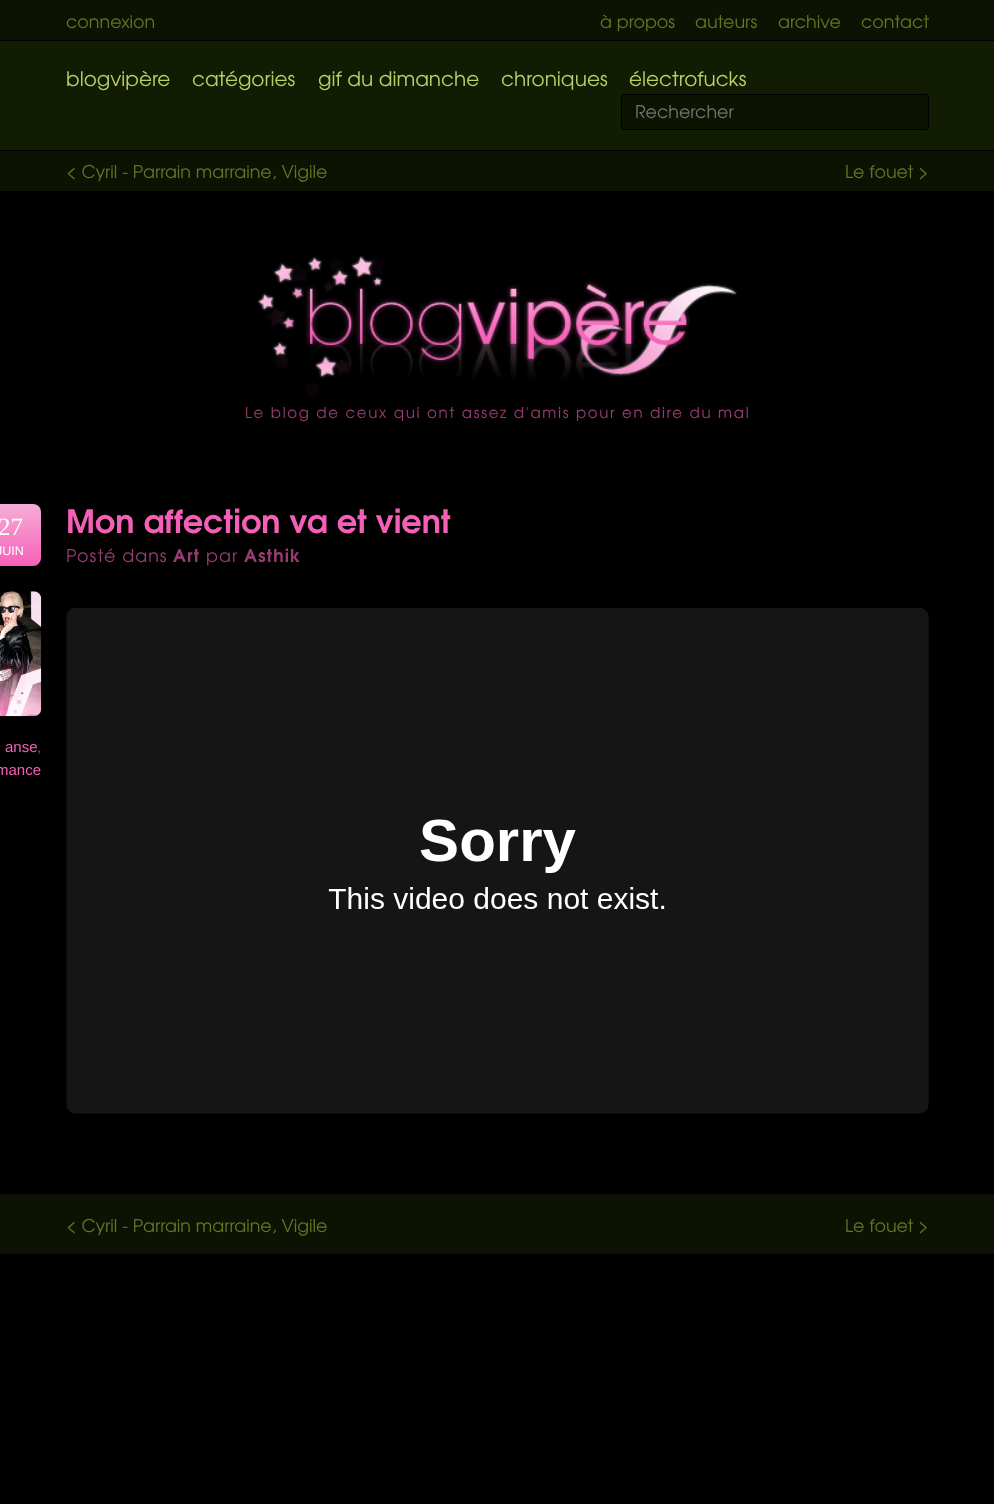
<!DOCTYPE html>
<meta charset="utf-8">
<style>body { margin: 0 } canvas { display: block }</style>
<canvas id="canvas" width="994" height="1504"></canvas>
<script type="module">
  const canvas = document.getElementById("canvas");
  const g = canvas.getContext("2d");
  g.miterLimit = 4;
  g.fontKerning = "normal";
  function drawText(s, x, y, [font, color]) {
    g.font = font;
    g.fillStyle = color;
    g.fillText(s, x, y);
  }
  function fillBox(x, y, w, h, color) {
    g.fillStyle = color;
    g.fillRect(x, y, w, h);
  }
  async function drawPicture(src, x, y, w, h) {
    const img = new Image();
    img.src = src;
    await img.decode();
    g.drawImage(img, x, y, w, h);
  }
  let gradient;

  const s1 = ["17.5px TeX Gyre Adventor", "#657524"];
  const s2 = ["20px TeX Gyre Adventor", "#B9CF63"];
  const s3 = ["17.5px TeX Gyre Adventor", "#757575"];
  const s4 = ["15px TeX Gyre Adventor", "#993C72"];
  const s5 = ["25px Liberation Serif", "#FFFFFF"];
  const s6 = ["12.5px Liberation Sans", "#FFFFFF"];
  const s7 = ["15px Liberation Sans", "#F65FB8"];
  const s8 = ["15px Liberation Sans", "#993C72"];
  const s9 = ["bold 32px TeX Gyre Adventor", "#F65FB8"];
  const s10 = ["17.5px TeX Gyre Adventor", "#993C72"];
  const s11 = ["bold 17.5px TeX Gyre Adventor", "#993C72"];

  fillBox(0, 0, 994, 1504, "#000000");
  fillBox(0, 0, 994, 191, "#0C1302");
  fillBox(0, 40, 994, 1, "#000000");
  drawText("connexion", 66, 28, s1);
  drawText("à propos", 600, 28, s1);
  drawText("auteurs", 695, 28, s1);
  drawText("archive", 778, 28, s1);
  drawText("contact", 861, 28, s1);
  fillBox(0, 41, 994, 109, "#121C02");
  drawText("blogvipère", 66, 86, s2);
  drawText("catégories", 192, 86, s2);
  drawText("gif du dimanche", 318, 86, s2);
  drawText("chroniques", 501, 86, s2);
  drawText("électrofucks", 629, 86, s2);
  fillBox(621, 94, 308, 36, "#0C1301");
  g.beginPath();
  g.roundRect(621.5, 94.5, 307, 35, 3.5);
  g.strokeStyle = "#000000";
  g.stroke();
  drawText("Rechercher", 635, 118, s3);
  fillBox(0, 150, 994, 1, "#000000");
  drawText("< Cyril - Parrain marraine, Vigile", 66, 178, s1);
  drawText("Le fouet >", 845, 178, s1);
  await drawPicture("pic1.png", 257, 256, 480, 141);
  g.letterSpacing = "1.65px";
  drawText("Le blog de ceux qui ont assez d'amis pour en dire du mal", 245, 418, s4);
  gradient = g.createLinearGradient(10, 504, 10, 566);
  gradient.addColorStop(0, "#F6ADD8");
  gradient.addColorStop(1, "#F660B8");
  g.fillStyle = gradient;
  g.beginPath();
  g.roundRect(-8, 504, 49, 62, 8);
  g.fill();
  g.letterSpacing = "0px";
  drawText("27", -2, 535, s5);
  drawText("JUIN", -4, 555, s6);
  await drawPicture("pic2.png", 0, 591, 42, 126);
  drawText("anse", 5, 752, s7);
  drawText(",", 37, 752, s8);
  drawText("mance", -4, 775, s7);
  drawText("Mon affection va et vient", 66, 533, s9);
  g.letterSpacing = "1px";
  drawText("Posté dans", 66, 562, s10);
  drawText("Art", 173, 562, s11);
  drawText("par", 206, 562, s10);
  drawText("Asthik", 244, 562, s11);
  await drawPicture("pic3.png", 66, 608, 863, 506);
  fillBox(0, 1194, 994, 60, "#0C1302");
  g.letterSpacing = "0px";
  drawText("< Cyril - Parrain marraine, Vigile", 66, 1232, s1);
  drawText("Le fouet >", 845, 1232, s1);
</script>
